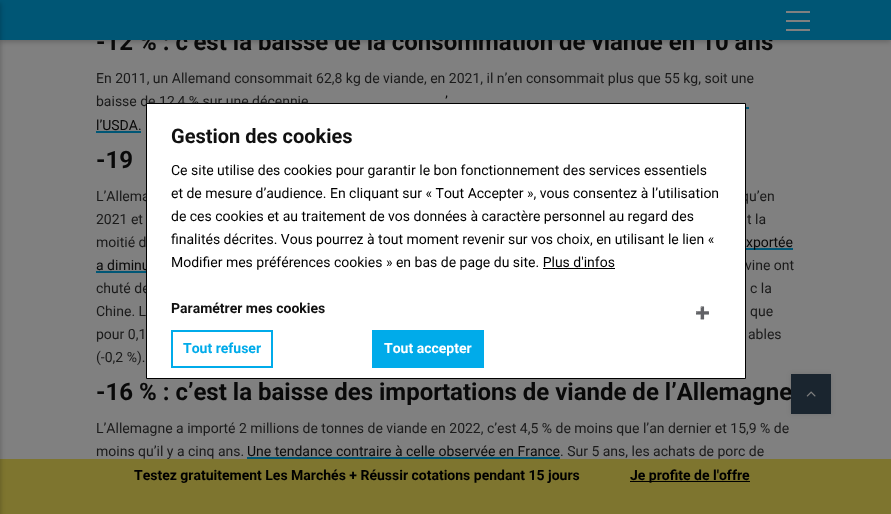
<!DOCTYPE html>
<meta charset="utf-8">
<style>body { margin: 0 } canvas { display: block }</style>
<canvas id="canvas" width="891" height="514"></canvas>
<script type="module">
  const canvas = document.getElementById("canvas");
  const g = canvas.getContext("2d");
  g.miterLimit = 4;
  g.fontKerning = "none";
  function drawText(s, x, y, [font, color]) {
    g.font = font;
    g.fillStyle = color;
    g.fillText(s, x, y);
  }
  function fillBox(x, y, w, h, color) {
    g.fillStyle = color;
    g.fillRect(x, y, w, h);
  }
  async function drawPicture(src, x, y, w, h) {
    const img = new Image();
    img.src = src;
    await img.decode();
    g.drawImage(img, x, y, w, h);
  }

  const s1 = ["bold 24px Roboto", "#090909"];
  const s2 = ["14px Roboto", "#1A1A1A"];
  const s3 = ["14px Roboto", "#090909"];
  const s4 = ["bold 14px Roboto", "#000000"];
  const s5 = ["bold 20px Roboto", "#111111"];
  const s6 = ["14px Roboto", "#000000"];
  const s7 = ["bold 14px Roboto", "#111111"];
  const s8 = ["bold 12px Noto Color Emoji", "#111111"];
  const s9 = ["bold 14px Roboto", "#00ABEA"];
  const s10 = ["bold 14px Roboto", "#FFFFFF"];

  fillBox(0, 0, 891, 514, "#808080");
  g.fillStyle = "rgba(0, 0, 0, 0.2)";
  g.filter = "blur(2.5px)";
  g.beginPath();
  g.rect(0, 2, 891, 40);
  g.fill();
  g.filter = "none";
  drawText("-12 % : c’est la baisse de la consommation de viande en 10 ans", 96, 50, s1);
  fillBox(0, 0, 891, 40, "#005675");
  fillBox(0, 459, 891, 55, "#7E752F");
  g.fillStyle = "rgba(0, 0, 0, 0.2)";
  g.filter = "blur(2px)";
  g.beginPath();
  g.rect(-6, 3, 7, 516);
  g.fill();
  g.filter = "none";
  fillBox(786, 11, 24, 2, "#808080");
  fillBox(786, 20, 24, 2, "#808080");
  fillBox(786, 29, 24, 2, "#808080");
  drawText("En 2011, un Allemand consommait 62,8 kg de viande, en 2021, il n’en consommait plus que 55 kg, soit une", 96, 83, s2);
  drawText("baisse de 12,4 % sur une décennie", 96, 106, s2);
  drawText("’", 445, 106, s3);
  fillBox(746, 107, 3, 2, "#005675");
  drawText("l’USDA.", 96, 130, s3);
  fillBox(96, 131, 45, 2, "#005675");
  drawText("-19", 96, 168, s1);
  drawText("L’Allema", 96, 201, s2);
  drawText("qu’en", 741, 201, s2);
  drawText("2021 et", 96, 224, s2);
  drawText("t la", 747, 224, s2);
  drawText("moitié d", 96, 247, s2);
  fillBox(746, 248, 47, 2, "#005675");
  drawText("xportée", 746, 247, s3);
  drawText("a diminu", 96, 270, s3);
  fillBox(96, 271, 50, 2, "#005675");
  drawText("vine ont", 745, 270, s2);
  drawText("chuté de", 96, 293, s2);
  drawText("c la", 750, 293, s2);
  drawText("Chine. L", 96, 316, s2);
  drawText("que", 750, 316, s2);
  drawText("pour 0,1", 96, 339, s2);
  drawText("ables", 748, 339, s2);
  drawText("(-0,2 %).", 96, 362, s2);
  drawText("-16 % : c’est la baisse des importations de viande de l’Allemagne", 96, 400, s1);
  drawText("L’Allemagne a importé 2 millions de tonnes de viande en 2022, c’est 4,5 % de moins que l’an dernier et 15,9 % de", 96, 433, s2);
  drawText("moins qu’il y a cinq ans.", 96, 456, s2);
  drawText("Une tendance contraire à celle observée en France", 247, 456, s3);
  fillBox(247, 457, 313, 2, "#005675");
  drawText(". Sur 5 ans, les achats de porc de", 560, 456, s2);
  g.fillStyle = "rgba(0, 0, 0, 0.1)";
  g.filter = "blur(2.5px)";
  g.beginPath();
  g.rect(791, 374, 40, 40);
  g.fill();
  g.filter = "none";
  fillBox(791, 374, 40, 40, "#1A252F");
  await drawPicture("pic1.png", 806, 391, 10, 6);
  drawText("Testez gratuitement Les Marchés + Réussir cotations pendant 15 jours", 134, 480, s4);
  fillBox(630, 481, 120, 1, "#000000");
  drawText("Je profite de l'offre", 630, 480, s4);
  g.fillStyle = "#FFFFFF";
  g.beginPath();
  g.rect(146.5, 103.5, 599, 275);
  g.fill();
  g.strokeStyle = "#000000";
  g.stroke();
  drawText("Gestion des cookies", 171, 143, s5);
  drawText("Ce site utilise des cookies pour garantir le bon fonctionnement des services essentiels", 171, 175, s6);
  drawText("et de mesure d’audience. En cliquant sur « Tout Accepter », vous consentez à l’utilisation", 171, 198, s6);
  drawText("de ces cookies et au traitement de vos données à caractère personnel au regard des", 171, 221, s6);
  drawText("finalités décrites. Vous pourrez à tout moment revenir sur vos choix, en utilisant le lien «", 171, 244, s6);
  drawText("Modifier mes préférences cookies » en bas de page du site. Plus d'infos", 171, 267, s6);
  fillBox(543, 268, 72, 1, "#000000");
  drawText("Paramétrer mes cookies", 171, 313, s7);
  drawText("➕", 695, 317, s8);
  g.strokeStyle = "#00ABEA";
  g.lineWidth = 2;
  g.strokeRect(172, 331, 100, 36);
  drawText("Tout refuser", 183, 353, s9);
  fillBox(372, 330, 112, 38, "#00ABEA");
  drawText("Tout accepter", 384, 353, s10);
</script>
